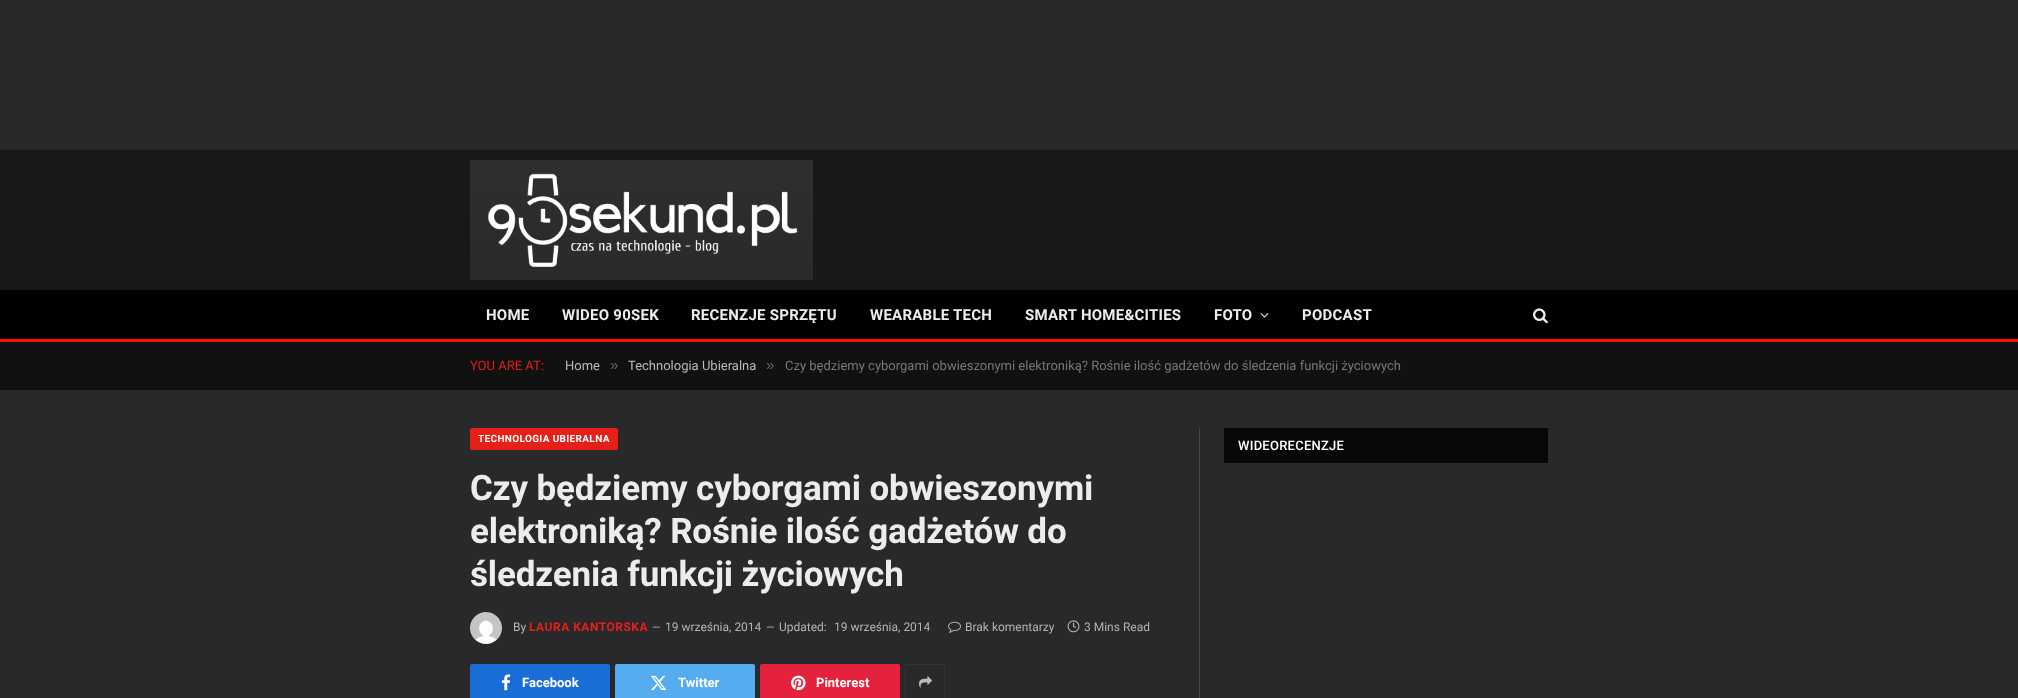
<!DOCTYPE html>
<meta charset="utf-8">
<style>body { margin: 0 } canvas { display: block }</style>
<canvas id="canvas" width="2018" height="698"></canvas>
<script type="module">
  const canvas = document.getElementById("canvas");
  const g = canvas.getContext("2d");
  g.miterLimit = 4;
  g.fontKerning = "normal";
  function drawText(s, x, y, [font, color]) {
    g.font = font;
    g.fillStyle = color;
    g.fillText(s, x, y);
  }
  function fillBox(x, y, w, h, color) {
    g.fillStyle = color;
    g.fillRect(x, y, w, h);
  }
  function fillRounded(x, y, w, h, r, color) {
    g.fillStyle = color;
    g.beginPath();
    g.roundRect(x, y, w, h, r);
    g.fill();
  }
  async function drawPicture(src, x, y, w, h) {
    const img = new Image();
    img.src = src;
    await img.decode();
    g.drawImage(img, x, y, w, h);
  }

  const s1 = ["bold 15px Roboto", "#ECECEC"];
  const s2 = ["13px Roboto", "#E52019"];
  const s3 = ["13px Roboto", "#BBBBBB"];
  const s4 = ["15px Liberation Sans", "#636363"];
  const s5 = ["13px Roboto", "#777777"];
  const s6 = ["bold 10px Roboto", "#FFFFFF"];
  const s7 = ["bold 35px Roboto", "#ECECEC"];
  const s8 = ["12px Roboto", "#B4B4B5"];
  const s9 = ["bold 12px Roboto", "#E52019"];
  const s10 = ["11px Roboto", "#B4B4B5"];
  const s11 = ["bold 13px Roboto", "#FFFFFF"];
  const s12 = ["500 13px Roboto", "#FFFFFF"];

  fillBox(0, 0, 2018, 698, "#29292B");
  fillBox(0, 150, 2018, 140, "#181818");
  await drawPicture("pic1.png", 470, 160, 343, 120);
  fillBox(0, 290, 2018, 49, "#000000");
  fillBox(0, 339, 2018, 3, "#FF1100");
  g.letterSpacing = "0.25px";
  drawText("HOME", 486, 320, s1);
  drawText("WIDEO 90SEK", 562, 320, s1);
  drawText("RECENZJE SPRZĘTU", 691, 320, s1);
  drawText("WEARABLE TECH", 870, 320, s1);
  drawText("SMART HOME&CITIES", 1025, 320, s1);
  drawText("FOTO", 1214, 320, s1);
  await drawPicture("pic2.png", 1260, 313, 9, 5);
  drawText("PODCAST", 1302, 320, s1);
  await drawPicture("pic3.png", 1533, 308, 15, 16);
  fillBox(0, 342, 2018, 48, "#111111");
  g.letterSpacing = "0px";
  drawText("YOU ARE AT:", 470, 370, s2);
  drawText("Home", 565, 370, s3);
  drawText("»", 610, 370, s4);
  drawText("Technologia Ubieralna", 628, 370, s3);
  drawText("»", 766, 370, s4);
  drawText("Czy będziemy cyborgami obwieszonymi elektroniką? Rośnie ilość gadżetów do śledzenia funkcji życiowych", 785, 370, s5);
  fillRounded(470, 428, 148, 22, 2, "#E52019");
  g.letterSpacing = "0.35px";
  drawText("TECHNOLOGIA UBIERALNA", 478, 442, s6);
  g.letterSpacing = "-0.15px";
  drawText("Czy będziemy cyborgami obwieszonymi", 470, 500, s7);
  drawText("elektroniką? Rośnie ilość gadżetów do", 470, 543, s7);
  drawText("śledzenia funkcji życiowych", 470, 586, s7);
  await drawPicture("pic4.png", 470, 612, 32, 32);
  g.letterSpacing = "0px";
  drawText("By", 513, 631, s8);
  g.letterSpacing = "0.5px";
  drawText("LAURA KANTORSKA", 529, 631, s9);
  g.letterSpacing = "0px";
  drawText("—", 652, 631, s10);
  drawText("19 września, 2014", 665, 631, s8);
  drawText("—", 766, 631, s10);
  drawText("Updated:", 779, 631, s8);
  drawText("19 września, 2014", 834, 631, s8);
  await drawPicture("pic5.png", 948, 621, 13, 12);
  drawText("Brak komentarzy", 965, 631, s8);
  await drawPicture("pic6.png", 1067, 620, 13, 13);
  drawText("3 Mins Read", 1084, 631, s8);
  fillRounded(470, 664, 140, 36, 2, "#1A6DD4");
  await drawPicture("pic7.png", 501, 674, 10, 17);
  drawText("Facebook", 522, 687, s11);
  fillRounded(615, 664, 140, 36, 2, "#55ACEF");
  await drawPicture("pic8.png", 650, 675, 17, 15);
  drawText("Twitter", 678, 687, s11);
  fillRounded(760, 664, 140, 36, 2, "#E4223E");
  await drawPicture("pic9.png", 791, 675, 15, 16);
  drawText("Pinterest", 816, 687, s11);
  g.beginPath();
  g.roundRect(905.5, 664.5, 39, 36, 1.5);
  g.strokeStyle = "#333333";
  g.stroke();
  await drawPicture("pic10.png", 919, 676, 13, 12);
  fillBox(1199, 428, 1, 270, "#454547");
  fillBox(1224, 428, 324, 35, "#080808");
  g.letterSpacing = "0.25px";
  drawText("WIDEORECENZJE", 1238, 450, s12);
</script>
